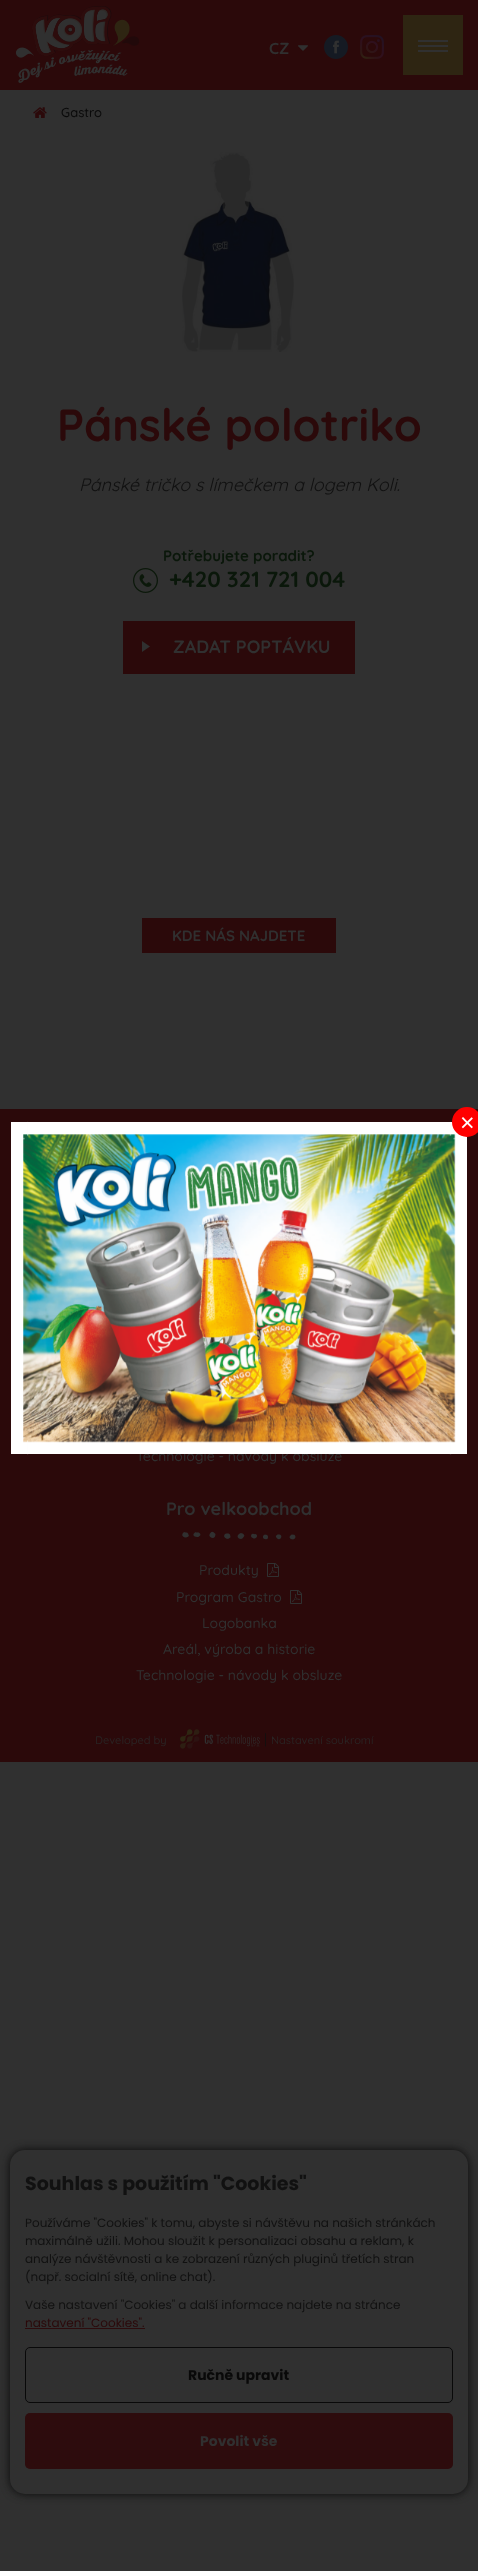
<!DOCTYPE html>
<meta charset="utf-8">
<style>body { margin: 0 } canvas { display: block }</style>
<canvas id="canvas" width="478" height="2571"></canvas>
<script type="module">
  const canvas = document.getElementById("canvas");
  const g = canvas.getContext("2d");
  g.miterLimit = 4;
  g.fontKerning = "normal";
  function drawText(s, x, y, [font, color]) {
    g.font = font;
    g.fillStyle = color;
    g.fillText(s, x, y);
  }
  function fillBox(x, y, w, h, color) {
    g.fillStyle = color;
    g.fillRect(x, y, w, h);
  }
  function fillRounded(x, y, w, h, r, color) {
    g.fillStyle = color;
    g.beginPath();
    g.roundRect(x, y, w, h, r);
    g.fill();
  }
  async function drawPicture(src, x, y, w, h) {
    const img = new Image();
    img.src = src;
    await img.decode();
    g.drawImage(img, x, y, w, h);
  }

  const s1 = ["bold 16px Quicksand", "#303030"];
  const s2 = ["500 13px Quicksand", "#090909"];
  const s3 = ["bold 45px Quicksand", "#2B090A"];
  const s4 = ["italic 18px Quicksand", "#111111"];
  const s5 = ["bold 15px Quicksand", "#0A170A"];
  const s6 = ["bold 22px Quicksand", "#0A170A"];
  const s7 = ["bold 18px Quicksand", "#303030"];
  const s8 = ["bold 15px Quicksand", "#303030"];
  const s9 = ["500 14px Quicksand", "#303030"];
  const s10 = ["500 11px Quicksand", "#2A2323"];
  const s11 = ["14px Quicksand", "#111111"];
  const s12 = ["25px Liberation Sans", "#FFFFFF"];
  const s13 = ["bold 19px Poppins", "#111111"];
  const s14 = ["12px Poppins", "#111111"];
  const s15 = ["12px Poppins", "#2B090A"];
  const s16 = ["bold 14px Poppins", "#090909"];
  const s17 = ["bold 14px Poppins", "#303030"];

  fillBox(0, 0, 478, 2571, "#303030");
  fillBox(0, 0, 478, 90, "#2B090A");
  await drawPicture("pic1.png", 15, 6, 125, 77);
  drawText("CZ", 269, 54, s1);
  await drawPicture("pic2.png", 298, 45, 10, 6);
  await drawPicture("pic3.png", 324, 35, 24, 24);
  await drawPicture("pic4.png", 360, 35, 24, 24);
  fillBox(403, 15, 60, 60, "#2E2512");
  fillBox(418, 40, 30, 2, "#303030");
  fillBox(418, 45, 30, 2, "#303030");
  fillBox(418, 50, 30, 2, "#303030");
  await drawPicture("pic5.png", 33, 107, 14, 11);
  drawText("Gastro", 61, 117, s2);
  await drawPicture("pic6.png", 182, 152, 112, 200);
  drawText("Pánské polotriko", 57, 441, s3);
  drawText("Pánské tričko s límečkem a logem Koli.", 79, 491, s4);
  drawText("Potřebujete poradit?", 163, 561, s5);
  await drawPicture("pic7.png", 133, 568, 25, 25);
  drawText("+420 321 721 004", 169, 587, s6);
  fillBox(123, 621, 232, 53, "#2B090A");
  g.fillStyle = "#303030";
  g.beginPath();
  g.moveTo(142, 641);
  g.lineTo(142, 652);
  g.lineTo(150, 646.5);
  g.closePath();
  g.fill();
  drawText("ZADAT POPTÁVKU", 173, 653, s7);
  fillBox(142, 918, 194, 35, "#2B090A");
  drawText("KDE NÁS NAJDETE", 172, 941, s8);
  fillBox(0, 1109, 478, 653, "#2B090A");
  drawText("Technologie - návody k obsluze", 136, 1461, s9);
  drawText("Pro velkoobchod", 166, 1515, s7);
  await drawPicture("pic8.png", 182, 1531, 114, 9);
  drawText("Produkty", 199, 1575, s9);
  await drawPicture("pic9.png", 267, 1563, 12, 14);
  drawText("Program Gastro", 176, 1602, s9);
  await drawPicture("pic9.png", 290, 1590, 12, 14);
  drawText("Logobanka", 202, 1628, s9);
  drawText("Areál, výroba a historie", 163, 1654, s9);
  drawText("Technologie - návody k obsluze", 136, 1680, s9);
  drawText("Developed by", 95, 1744, s10);
  await drawPicture("pic10.png", 180, 1729, 80, 20);
  drawText("|", 264, 1744, s11);
  drawText("Nastavení soukromí", 271, 1744, s10);
  fillBox(11, 1122, 456, 332, "#FFFFFF");
  await drawPicture("pic11.png", 23, 1121, 433, 334);
  g.fillStyle = "#FF0000";
  g.beginPath();
  g.arc(467, 1122, 15, 0, Math.PI * 2);
  g.fill();
  drawText("×", 460, 1131, s12);
  g.fillStyle = "#090909";
  g.filter = "blur(5px)";
  g.beginPath();
  g.roundRect(10, 2150, 458, 344, 15);
  g.fill();
  g.filter = "none";
  fillRounded(10, 2150, 458, 344, 15, "#303030");
  drawText("Souhlas s použitím \"Cookies\"", 25, 2190, s13);
  drawText("Používáme \"Cookies\" k tomu, abyste si návštěvu na našich stránkách", 25, 2227, s14);
  drawText("maximálně užili. Mohou sloužit k personalizaci obsahu a reklam, k", 25, 2245, s14);
  drawText("analýze návštěvnosti a ke zobrazení různých pluginů třetích stran", 25, 2263, s14);
  drawText("(např. socialní sítě, online chat).", 25, 2281, s14);
  drawText("Vaše nastavení \"Cookies\" a další informace najdete na stránce", 25, 2309, s14);
  drawText("nastavení \"Cookies\".", 25, 2327, s15);
  fillBox(25, 2328, 120, 1, "#2D0C0D");
  g.beginPath();
  g.roundRect(25.5, 2347.5, 427, 55, 4.5);
  g.strokeStyle = "#090909";
  g.stroke();
  drawText("Ručně upravit", 188, 2380, s16);
  fillRounded(25, 2413, 428, 56, 5, "#2D0C0D");
  drawText("Povolit vše", 200, 2446, s17);
</script>
